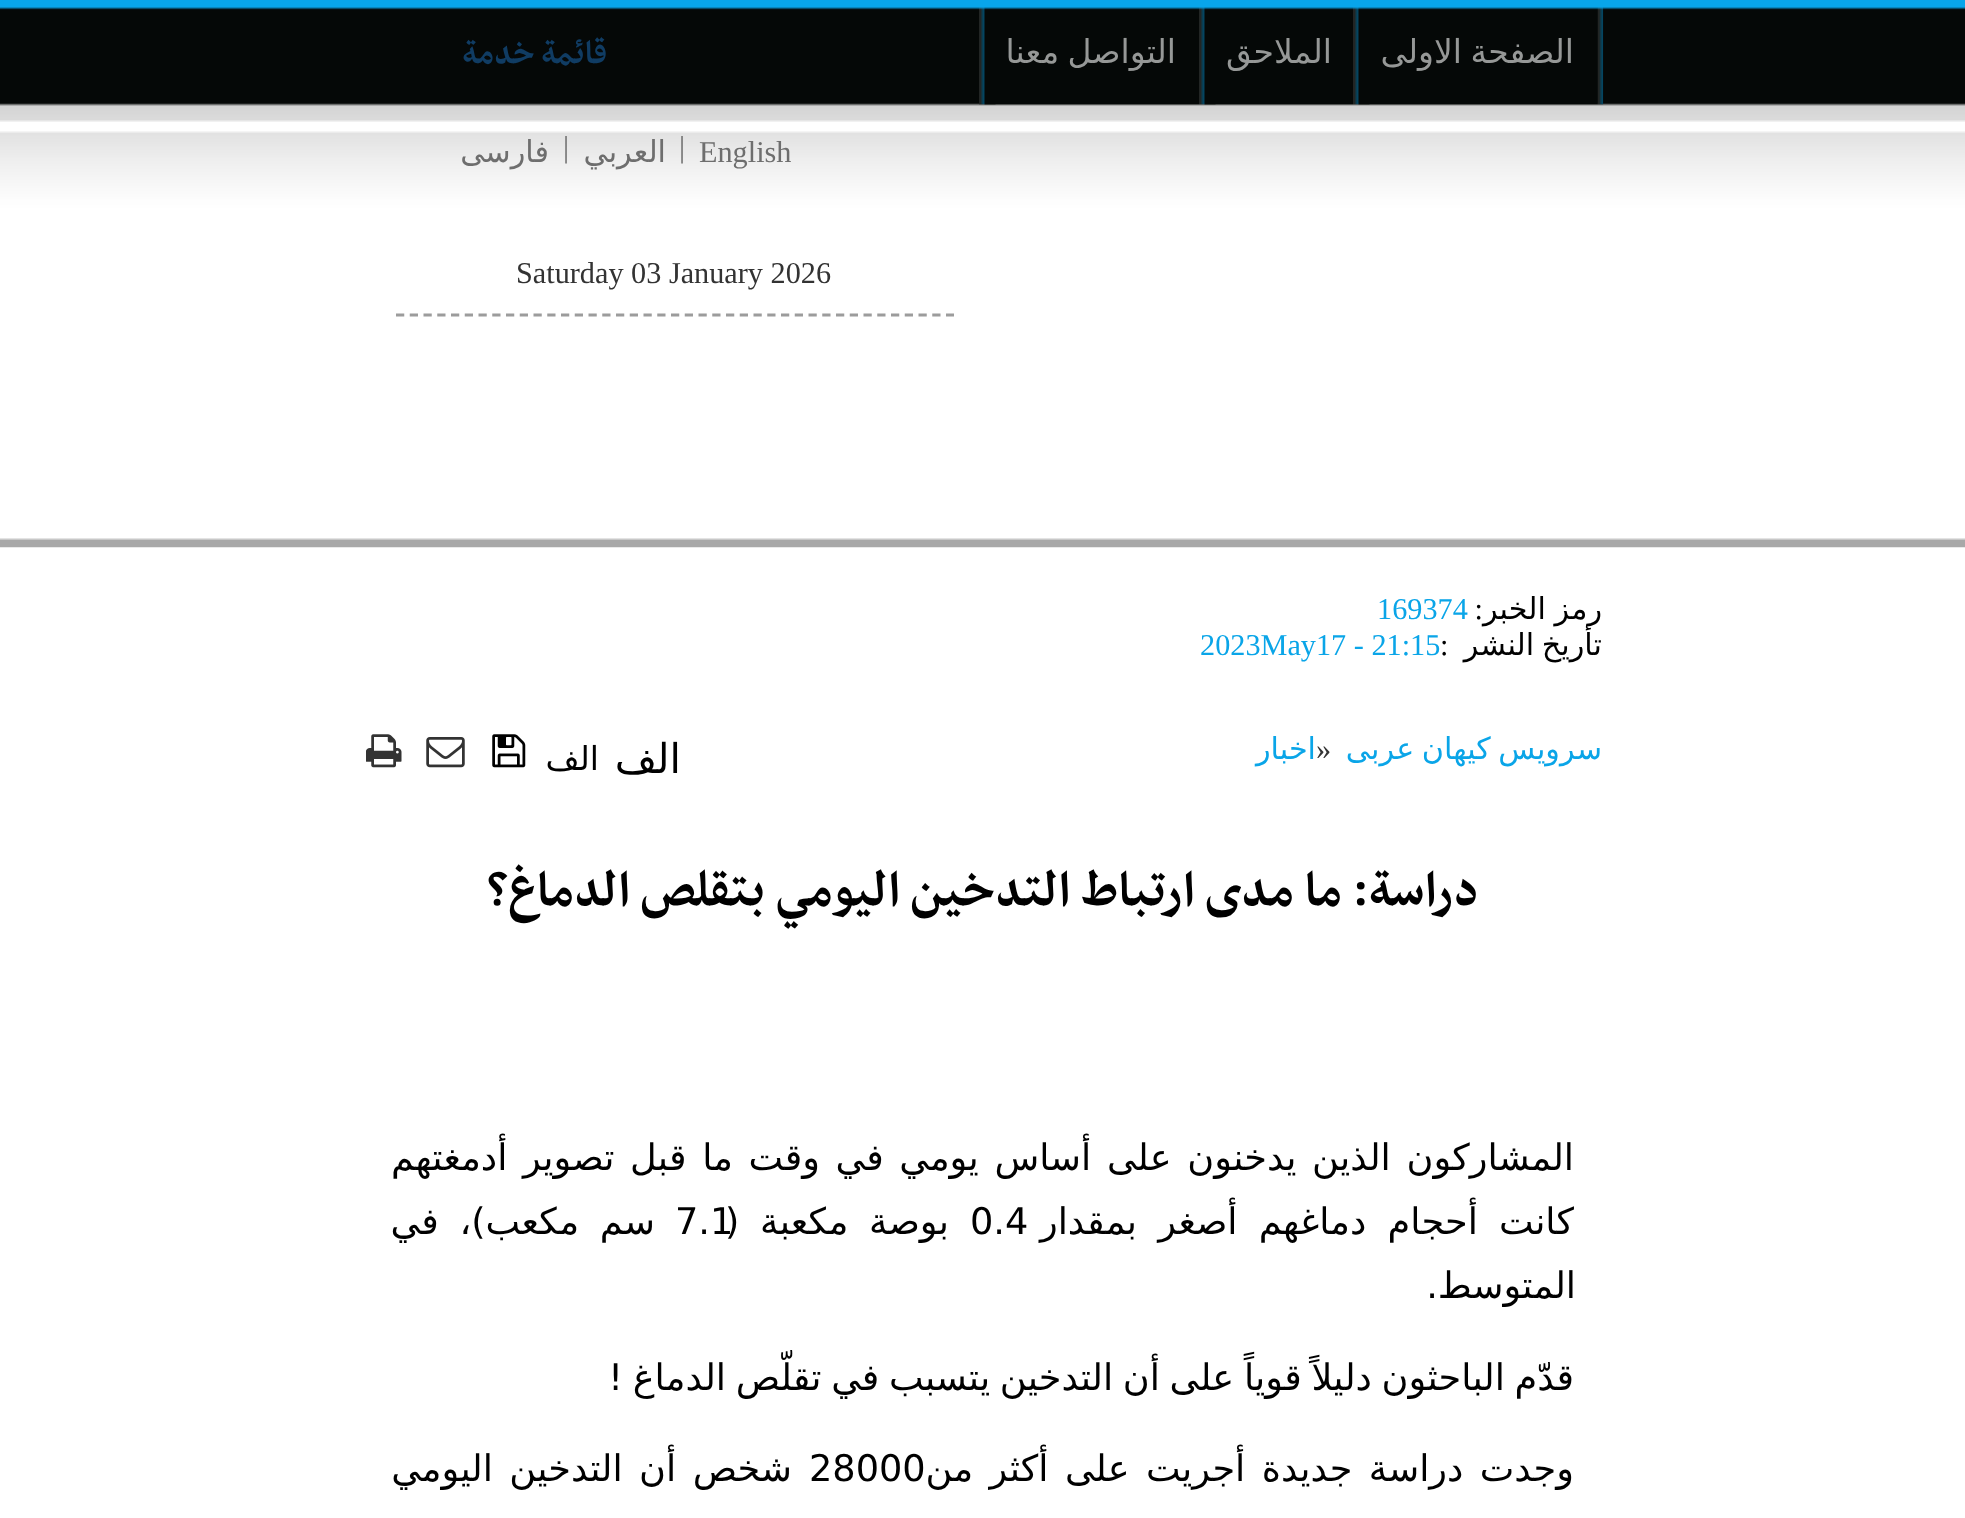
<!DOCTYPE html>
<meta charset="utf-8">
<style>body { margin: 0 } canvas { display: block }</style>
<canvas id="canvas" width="1965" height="1518"></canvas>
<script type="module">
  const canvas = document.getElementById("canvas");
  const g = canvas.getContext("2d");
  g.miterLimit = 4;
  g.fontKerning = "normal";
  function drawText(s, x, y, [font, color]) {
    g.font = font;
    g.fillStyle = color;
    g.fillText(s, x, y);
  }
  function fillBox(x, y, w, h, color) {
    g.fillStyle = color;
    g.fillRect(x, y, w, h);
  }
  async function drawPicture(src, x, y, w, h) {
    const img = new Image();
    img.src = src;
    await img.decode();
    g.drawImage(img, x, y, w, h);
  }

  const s1 = ["33px DejaVu Sans", "#969897"];
  const s2 = ["bold 38.5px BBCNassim", "#103C63"];
  const s3 = ["30.25px Liberation Serif", "#6E6E6E"];
  const s4 = ["30.25px DejaVu Sans", "#6E6E6E"];
  const s5 = ["30.25px Liberation Serif", "#333333"];
  const s6 = ["30.25px DejaVu Sans", "#000000"];
  const s7 = ["30.25px Liberation Serif", "#000000"];
  const s8 = ["30.25px Liberation Serif", "#0AA5E8"];
  const s9 = ["30.25px DejaVu Sans", "#0AA5E8"];
  const s10 = ["41px DejaVu Sans", "#000000"];
  const s11 = ["33px DejaVu Sans", "#000000"];
  const s12 = ["bold 57.75px BBCNassim", "#000000"];
  const s13 = ["36.7px DejaVu Sans", "#000000"];

  fillBox(0, 0, 1965, 1518, "#FFFFFF");
  await drawPicture("pic1.png", 0, 0, 1965, 548);
  await drawPicture("pic3.png", 1358, 103, 12, 2);
  await drawPicture("pic4.png", 1358, 103, 240, 2);
  await drawPicture("pic2.png", 1597, 7, 7, 98);
  g.wordSpacing = "-2px";
  g.direction = "rtl";
  drawText("الصفحة الاولى", 1574, 63, s1);
  await drawPicture("pic5.png", 1353, 7, 6, 98);
  await drawPicture("pic3.png", 1204, 103, 12, 2);
  await drawPicture("pic6.png", 1204, 103, 149, 2);
  g.wordSpacing = "0px";
  drawText("الملاحق", 1332, 63, s1);
  await drawPicture("pic5.png", 1199, 7, 6, 98);
  await drawPicture("pic3.png", 984, 103, 12, 2);
  await drawPicture("pic7.png", 984, 103, 215, 2);
  g.wordSpacing = "-2px";
  drawText("التواصل معنا", 1176, 63, s1);
  await drawPicture("pic5.png", 979, 7, 6, 98);
  g.wordSpacing = "0px";
  drawText("قائمة خدمة", 607, 63, s2);
  g.direction = "ltr";
  drawText("English", 699, 162, s3);
  drawText("|", 679, 157, s3);
  g.direction = "rtl";
  drawText("العربي", 666, 162, s4);
  g.direction = "ltr";
  drawText("|", 563, 157, s3);
  g.direction = "rtl";
  drawText("فارسی", 549, 162, s4);
  g.beginPath();
  g.moveTo(396, 315);
  g.lineTo(954, 315);
  g.strokeStyle = "#9C9C9C";
  g.lineWidth = 2.8;
  g.setLineDash([8.25, 5.5]);
  g.stroke();
  g.direction = "ltr";
  drawText("Saturday 03 January 2026", 516, 283, s5);
  g.wordSpacing = "-1px";
  g.direction = "rtl";
  drawText("رمز الخبر", 1602, 619, s6);
  g.wordSpacing = "0px";
  drawText(":", 1483, 619, s7);
  g.direction = "ltr";
  drawText("169374", 1377, 619, s8);
  g.wordSpacing = "-2px";
  g.direction = "rtl";
  drawText("تأريخ النشر", 1602, 655, s6);
  g.wordSpacing = "0px";
  g.direction = "ltr";
  drawText(":", 1440, 655, s7);
  drawText("2023May17 - 21:15", 1200, 655, s8);
  g.wordSpacing = "-2px";
  g.direction = "rtl";
  drawText("سرویس کیهان عربی", 1602, 759, s9);
  g.wordSpacing = "0px";
  g.direction = "ltr";
  drawText("»", 1316, 759, s5);
  g.direction = "rtl";
  drawText("اخبار", 1316, 759, s9);
  drawText("الف", 681, 773, s10);
  drawText("الف", 599, 770, s11);
  await drawPicture("pic8.png", 492, 734, 34, 34);
  await drawPicture("pic9.png", 426, 737, 39, 31);
  await drawPicture("pic10.png", 366, 734, 36, 34);
  drawText("دراسة: ما مدى ارتباط التدخين اليومي بتقلص الدماغ؟", 1479, 905, s12);
  g.wordSpacing = "4px";
  drawText("المشاركون الذين يدخنون على أساس يومي في وقت ما قبل تصوير أدمغتهم", 1574, 1170, s13);
  g.wordSpacing = "9.5px";
  drawText("كانت أحجام دماغهم أصغر بمقدار", 1574, 1234, s13);
  g.wordSpacing = "0px";
  g.direction = "ltr";
  drawText("0.4", 970, 1234, s13);
  drawText("7.1", 675, 1234, s13);
  g.wordSpacing = "9px";
  g.direction = "rtl";
  drawText("بوصة مكعبة (", 949, 1234, s13);
  drawText("سم مكعب)، في", 655, 1234, s13);
  g.wordSpacing = "0px";
  drawText("المتوسط.", 1576, 1298, s13);
  g.wordSpacing = "-2px";
  drawText("قدّم الباحثون دليلاً قوياً على أن التدخين يتسبب في تقلّص الدماغ !", 1574, 1390, s13);
  g.wordSpacing = "4.75px";
  drawText("وجدت دراسة جديدة أجريت على أكثر من", 1574, 1481, s13);
  g.wordSpacing = "0px";
  g.direction = "ltr";
  drawText("28000", 809, 1481, s13);
  g.wordSpacing = "4.75px";
  g.direction = "rtl";
  drawText("شخص أن التدخين اليومي", 792, 1481, s13);
</script>
